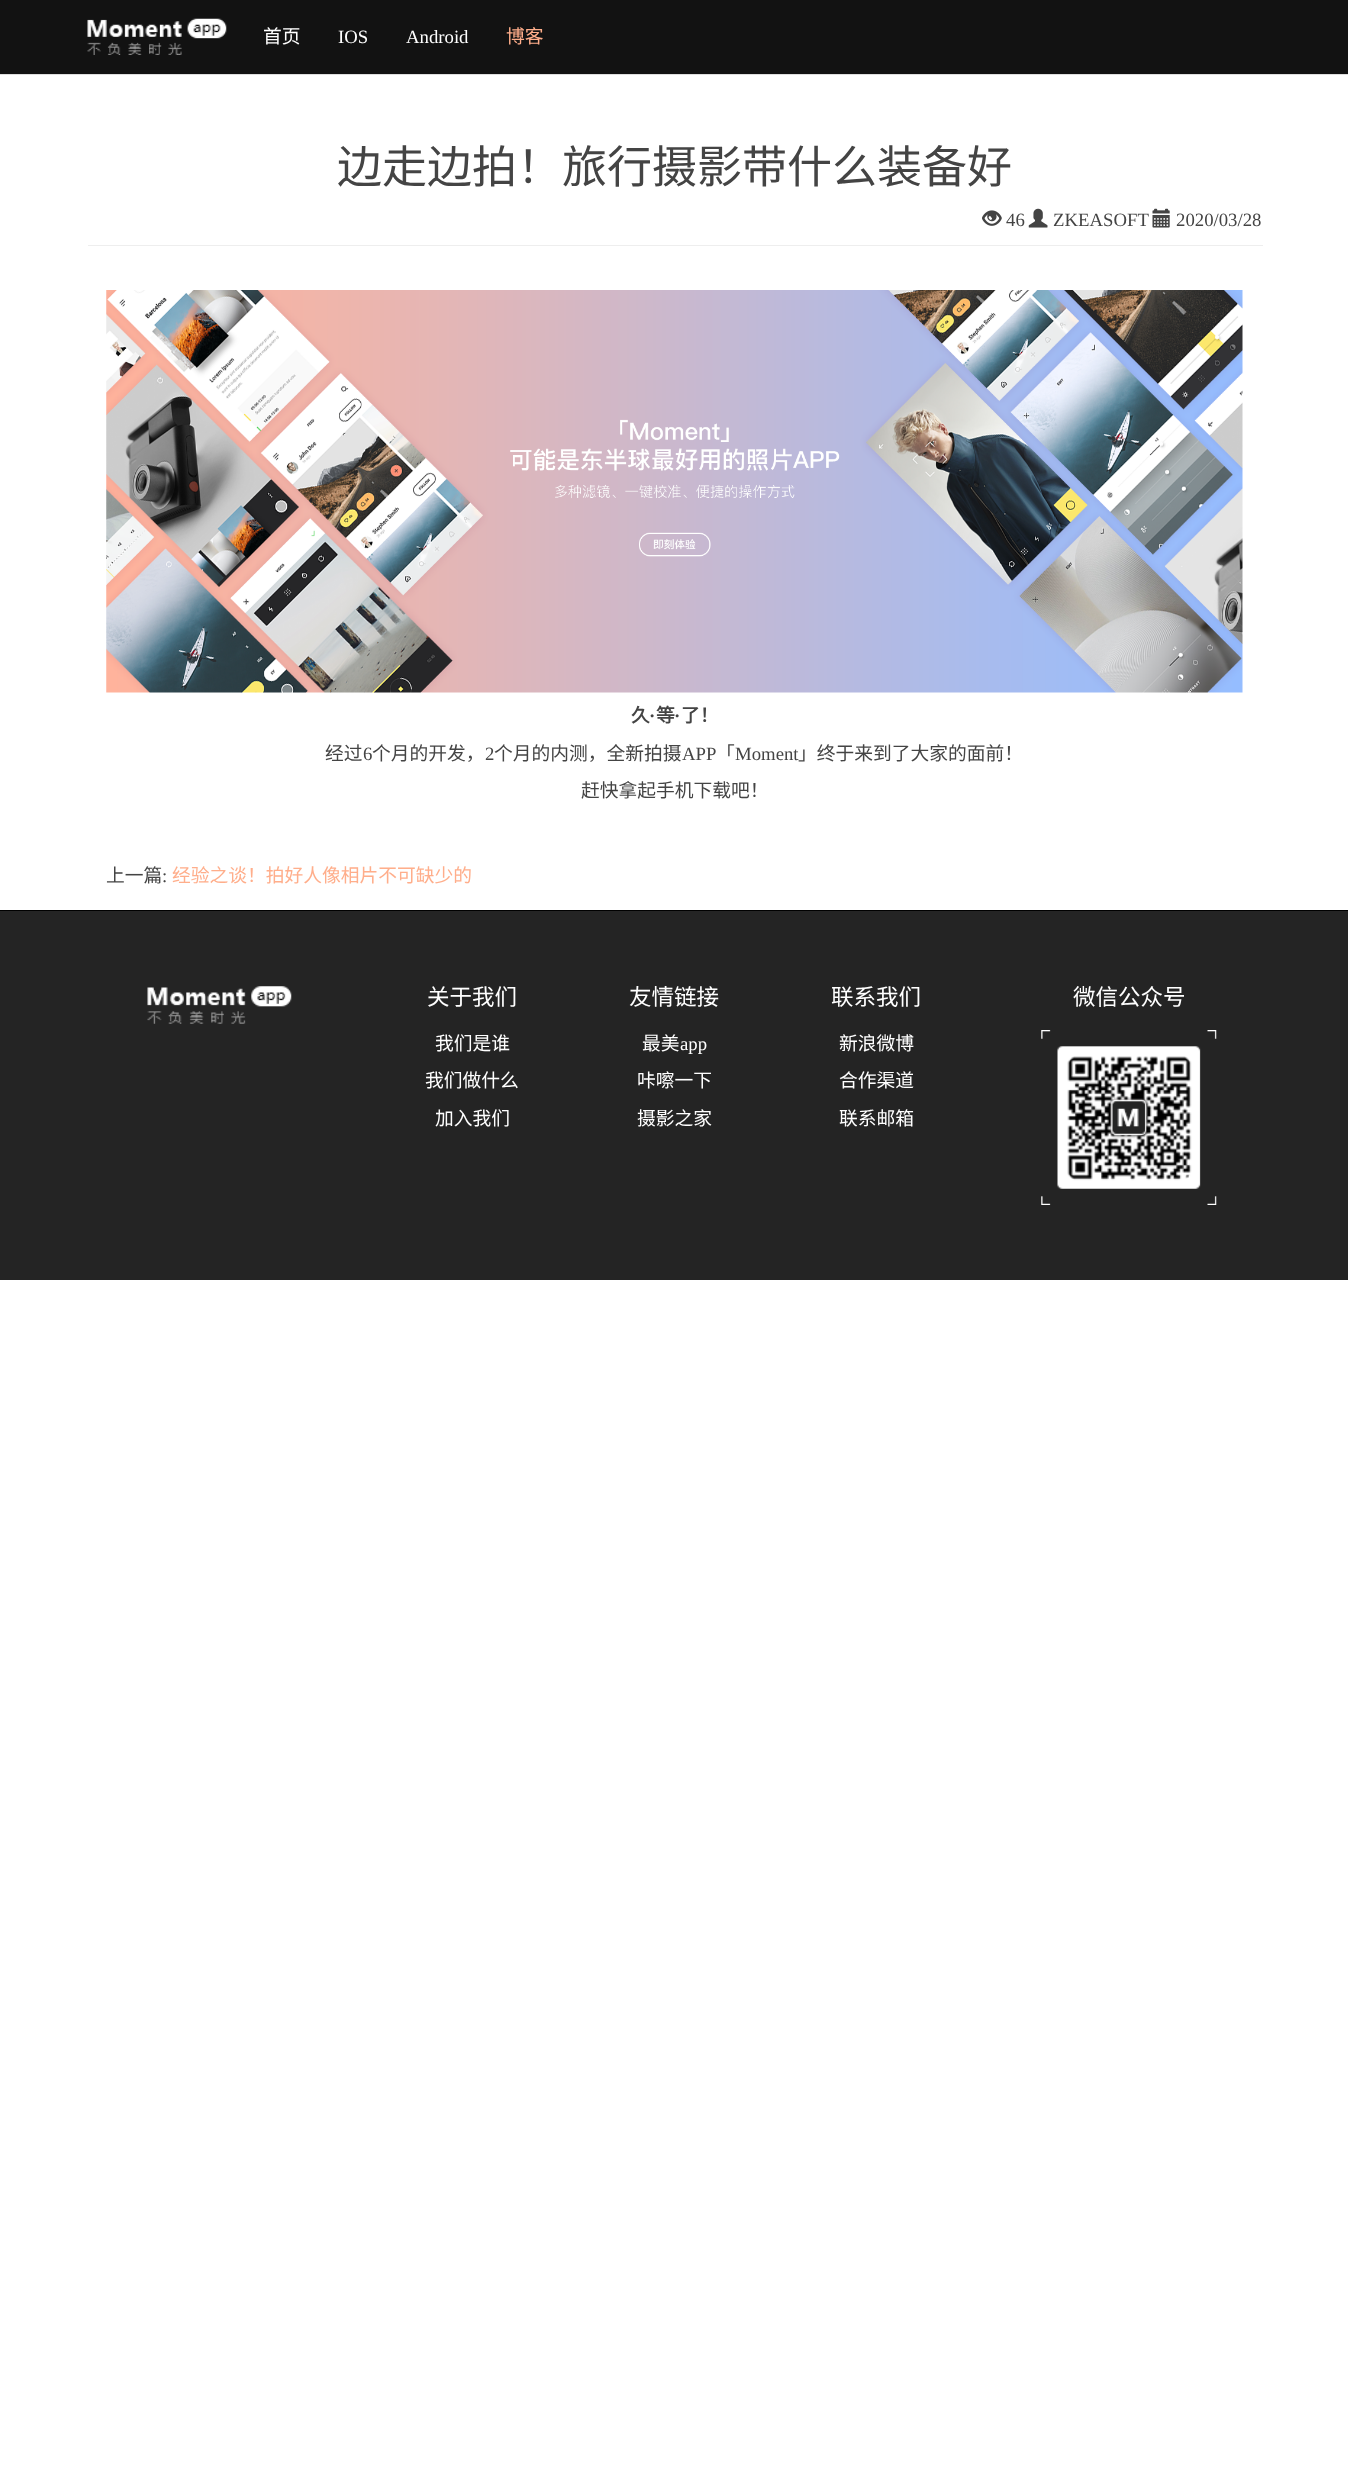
<!DOCTYPE html>
<meta charset="utf-8">
<style>body { margin: 0 } canvas { display: block }</style>
<canvas id="canvas" width="1348" height="2483"></canvas>
<script type="module">
  const canvas = document.getElementById("canvas");
  const g = canvas.getContext("2d");
  g.miterLimit = 4;
  g.fontKerning = "normal";
  function drawText(s, x, y, [font, color]) {
    g.font = font;
    g.fillStyle = color;
    g.fillText(s, x, y);
  }
  function fillBox(x, y, w, h, color) {
    g.fillStyle = color;
    g.fillRect(x, y, w, h);
  }
  async function drawPicture(src, x, y, w, h) {
    const img = new Image();
    img.src = src;
    await img.decode();
    g.drawImage(img, x, y, w, h);
  }

  const s1 = ["18.75px Noto Sans CJK SC", "#FFFFFF"];
  const s2 = ["18.75px Liberation Serif", "#FFFFFF"];
  const s3 = ["18.75px Noto Sans CJK SC", "#FFAE8B"];
  const s4 = ["45px Noto Sans CJK SC", "#444444"];
  const s5 = ["18.75px Liberation Serif", "#444444"];
  const s6 = ["bold 18.75px Noto Sans CJK SC", "#444444"];
  const s7 = ["bold 18.75px Liberation Serif", "#444444"];
  const s8 = ["18.75px Noto Sans CJK SC", "#444444"];
  const s9 = ["22.5px Noto Sans CJK SC", "#FFFFFF"];

  fillBox(0, 0, 1348, 2483, "#FFFFFF");
  fillBox(0, 0, 1348, 74, "#121212");
  fillBox(0, 74, 1348, 1, "#DEDEDE");
  await drawPicture("pic1.png", 87, 18, 140, 37);
  drawText("首页", 263, 43, s1);
  drawText("IOS", 338, 43, s2);
  drawText("Android", 406, 43, s2);
  drawText("博客", 506, 43, s3);
  fillBox(88, 245, 1175, 1, "#EEEEEE");
  drawText("边走边拍！旅行摄影带什么装备好", 337, 183, s4);
  await drawPicture("pic2.png", 982, 210, 20, 16);
  drawText("46", 1006, 226, s5);
  await drawPicture("pic3.png", 1028, 208, 20, 20);
  drawText("ZKEASOFT", 1053, 226, s5);
  await drawPicture("pic4.png", 1152, 208, 18, 20);
  drawText("2020/03/28", 1176, 226, s5);
  await drawPicture("pic5.png", 106, 290, 1137, 403);
  drawText("久", 631, 722, s6);
  drawText("·", 649, 722, s7);
  drawText("等", 656, 722, s6);
  drawText("·", 674, 722, s7);
  drawText("了！", 681, 722, s6);
  drawText("经过", 325, 760, s8);
  drawText("6", 363, 760, s5);
  drawText("个月的开发，", 372, 760, s8);
  drawText("2", 485, 760, s5);
  drawText("个月的内测，全新拍摄", 494, 760, s8);
  drawText("APP", 682, 760, s5);
  drawText("「", 716, 760, s8);
  drawText("Moment", 735, 760, s5);
  drawText("」终于来到了大家的面前！", 798, 760, s8);
  drawText("赶快拿起手机下载吧！", 581, 797, s8);
  drawText("上一篇", 106, 882, s8);
  drawText(":", 162, 882, s5);
  drawText("经验之谈！拍好人像相片不可缺少的", 172, 882, s3);
  fillBox(0, 911, 1348, 369, "#242424");
  fillBox(0, 910, 1348, 1, "#000000");
  await drawPicture("pic6.png", 147, 986, 145, 38);
  drawText("关于我们", 427, 1005, s9);
  drawText("我们是谁", 435, 1050, s1);
  drawText("我们做什么", 425, 1087, s1);
  drawText("加入我们", 435, 1125, s1);
  drawText("友情链接", 629, 1005, s9);
  drawText("最美", 642, 1050, s1);
  drawText("app", 680, 1050, s2);
  drawText("咔嚓一下", 637, 1087, s1);
  drawText("摄影之家", 637, 1125, s1);
  drawText("联系我们", 831, 1005, s9);
  drawText("新浪微博", 839, 1050, s1);
  drawText("合作渠道", 839, 1087, s1);
  drawText("联系邮箱", 839, 1125, s1);
  drawText("微信公众号", 1073, 1005, s9);
  await drawPicture("pic7.png", 1041, 1030, 176, 175);
</script>
